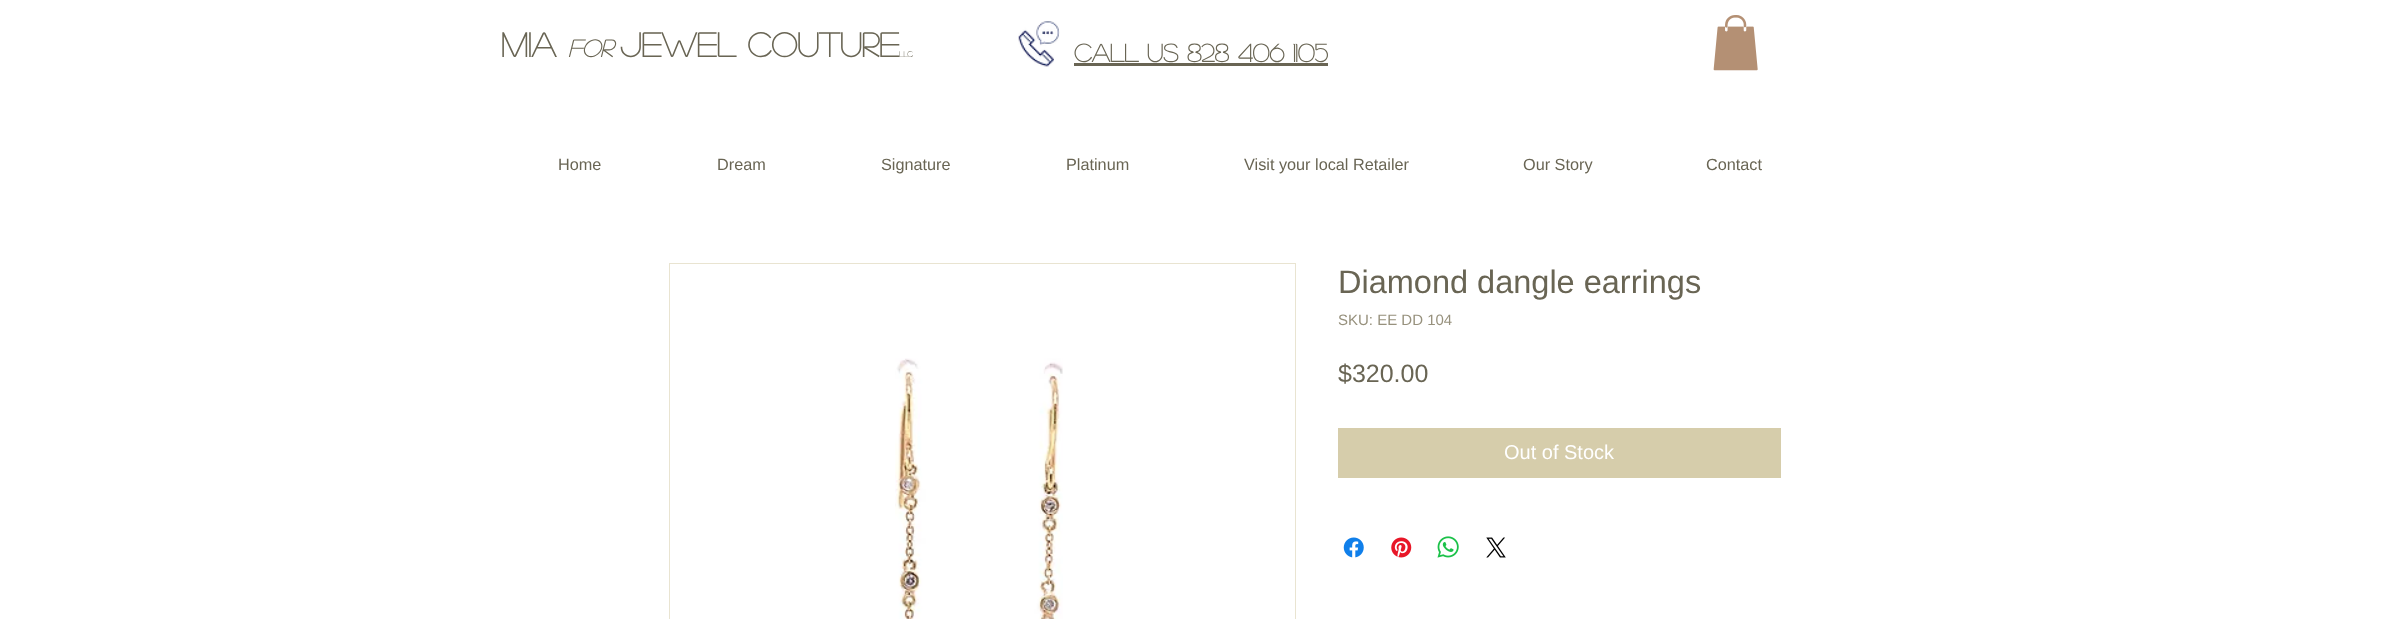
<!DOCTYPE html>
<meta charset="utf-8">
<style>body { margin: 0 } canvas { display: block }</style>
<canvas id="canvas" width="2390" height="619"></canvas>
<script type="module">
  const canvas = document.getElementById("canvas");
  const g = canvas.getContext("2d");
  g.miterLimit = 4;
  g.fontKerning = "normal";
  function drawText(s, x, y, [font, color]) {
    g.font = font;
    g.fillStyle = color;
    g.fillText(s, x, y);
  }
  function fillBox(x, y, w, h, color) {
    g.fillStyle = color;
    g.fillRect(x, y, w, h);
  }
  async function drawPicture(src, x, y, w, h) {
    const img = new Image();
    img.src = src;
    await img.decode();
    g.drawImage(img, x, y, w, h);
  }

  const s1 = ["bold 33.75px 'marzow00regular'", "#696554"];
  const s2 = ["italic bold 24px 'marzow00regular'", "#696554"];
  const s3 = ["bold 8px 'marzow00regular'", "#696554"];
  const s4 = ["bold 25px 'marzow00regular'", "#696554"];
  const s5 = ["16.25px Liberation Sans", "#696554"];
  const s6 = ["32.5px Liberation Sans", "#696554"];
  const s7 = ["15px Liberation Sans", "#97917D"];
  const s8 = ["25px Liberation Sans", "#696554"];
  const s9 = ["20px Liberation Sans", "#FFFFFF"];

  fillBox(0, 0, 2390, 619, "#FFFFFF");
  await drawPicture("pic1.png", 1713, 15, 45, 56);
  drawText("MIA", 501, 57, s1);
  drawText("for", 568, 57, s2);
  drawText("JEWEL COUTURE", 620, 57, s1);
  drawText("LLC", 899, 57, s3);
  await drawPicture("pic2.png", 1018, 21, 42, 46);
  drawText("Call us 828 406 1105", 1074, 62, s4);
  fillBox(1074, 63, 254, 3, "#696554");
  drawText("Home", 558, 170, s5);
  drawText("Dream", 717, 170, s5);
  drawText("Signature", 881, 170, s5);
  drawText("Platinum", 1066, 170, s5);
  drawText("Visit your local Retailer", 1244, 170, s5);
  drawText("Our Story", 1523, 170, s5);
  drawText("Contact", 1706, 170, s5);
  g.strokeStyle = "#E9E4D1";
  g.strokeRect(669.5, 263.5, 626, 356);
  await drawPicture("pic3.png", 895, 358, 168, 261);
  drawText("Diamond dangle earrings", 1338, 293, s6);
  drawText("SKU: EE DD 104", 1338, 325, s7);
  drawText("$320.00", 1338, 382, s8);
  fillBox(1338, 428, 443, 50, "#D6CDAB");
  drawText("Out of Stock", 1504, 459, s9);
  await drawPicture("pic4.png", 1343, 537, 21, 21);
  await drawPicture("pic5.png", 1391, 537, 21, 21);
  await drawPicture("pic6.png", 1437, 536, 22, 22);
  await drawPicture("pic7.png", 1486, 537, 20, 21);
</script>
